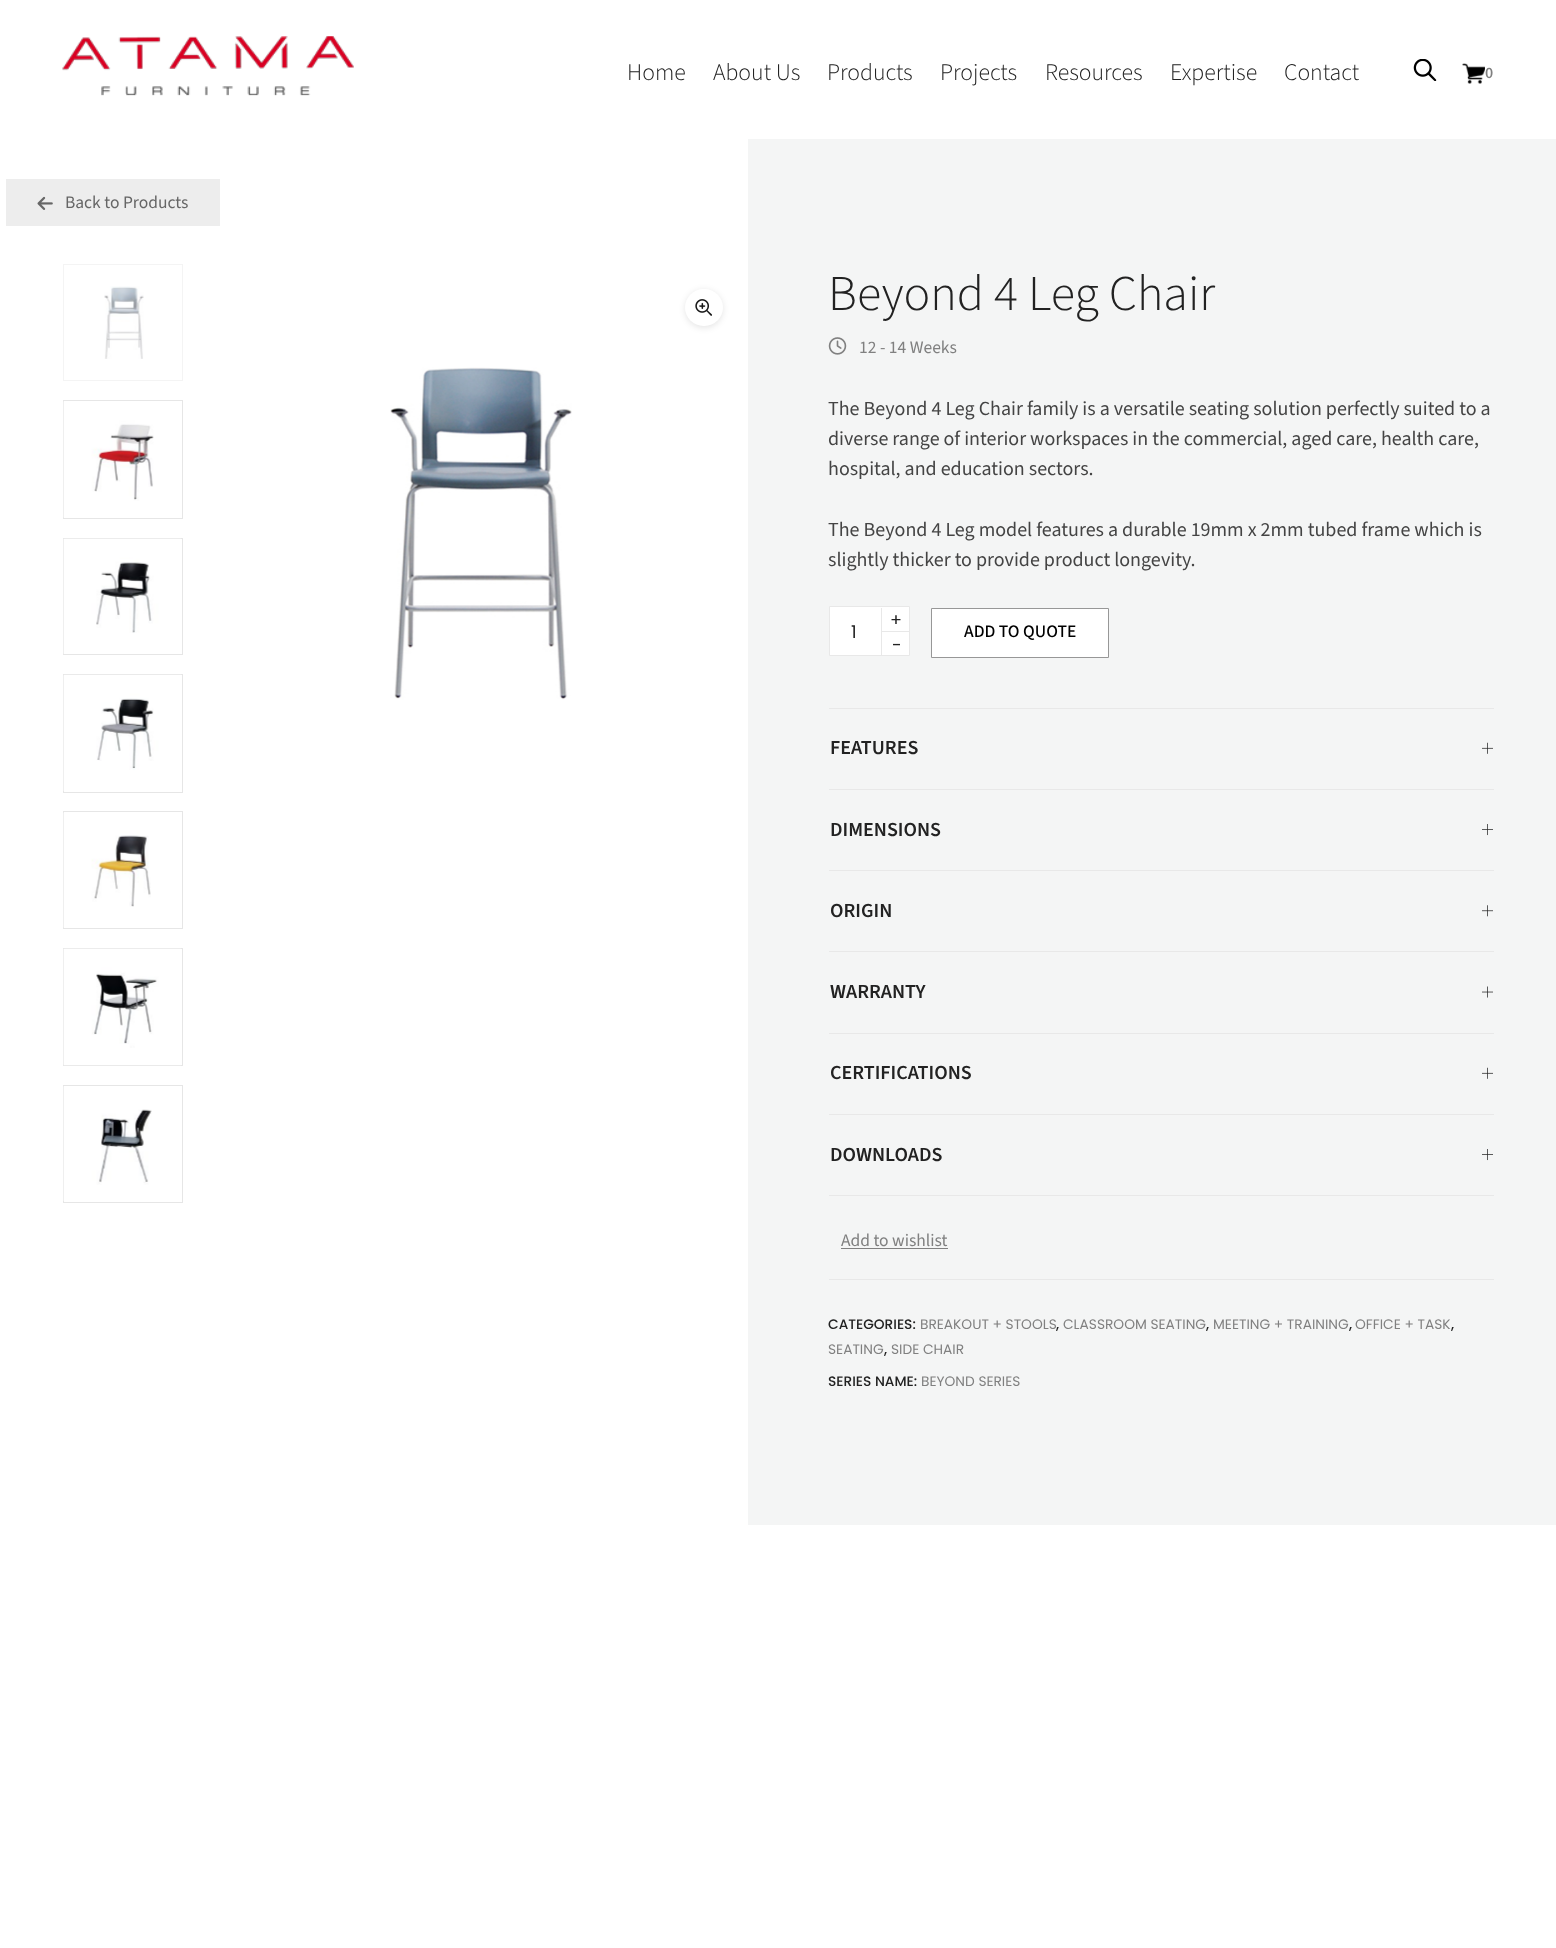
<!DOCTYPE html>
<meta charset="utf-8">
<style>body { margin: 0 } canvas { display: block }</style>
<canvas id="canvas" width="1556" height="1948"></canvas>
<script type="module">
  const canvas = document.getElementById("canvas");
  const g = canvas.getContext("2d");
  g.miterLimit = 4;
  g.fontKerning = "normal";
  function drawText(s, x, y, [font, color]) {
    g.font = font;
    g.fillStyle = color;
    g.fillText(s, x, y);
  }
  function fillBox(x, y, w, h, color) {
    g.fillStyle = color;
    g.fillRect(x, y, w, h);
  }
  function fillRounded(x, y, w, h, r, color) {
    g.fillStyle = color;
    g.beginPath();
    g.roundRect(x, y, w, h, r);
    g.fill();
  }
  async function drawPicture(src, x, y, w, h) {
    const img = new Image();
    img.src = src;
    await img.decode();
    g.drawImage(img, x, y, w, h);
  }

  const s1 = ["300 23.75px 'Source Sans 3'", "#222222"];
  const s2 = ["600 16px 'Source Sans 3'", "#808080"];
  const s3 = ["17.5px 'Source Sans 3'", "#666666"];
  const s4 = ["300 50px 'Source Sans 3'", "#222222"];
  const s5 = ["17.5px 'Source Sans 3'", "#808080"];
  const s6 = ["20px 'Source Sans 3'", "#444444"];
  const s7 = ["17.5px Poppins", "#222222"];
  const s8 = ["500 17.5px 'Source Sans 3'", "#000000"];
  const s9 = ["600 20px 'Source Sans 3'", "#222222"];
  const s10 = ["500 13.75px Poppins", "#222222"];
  const s11 = ["13.75px Poppins", "#808080"];

  fillBox(0, 0, 1556, 1948, "#FFFFFF");
  await drawPicture("pic1.png", 62, 36, 292, 60);
  drawText("Home", 627, 80, s1);
  drawText("About Us", 713, 80, s1);
  drawText("Products", 827, 80, s1);
  drawText("Projects", 940, 80, s1);
  drawText("Resources", 1045, 80, s1);
  drawText("Expertise", 1170, 80, s1);
  drawText("Contact", 1284, 80, s1);
  await drawPicture("pic2.png", 1413, 59, 24, 22);
  await drawPicture("pic3.png", 1462, 63, 23, 21);
  drawText("0", 1485, 78, s2);
  fillBox(6, 179, 214, 47, "#EDEDED");
  await drawPicture("pic4.png", 37, 196, 16, 14);
  drawText("Back to Products", 65, 208, s3);
  g.strokeStyle = "#F4F4F4";
  g.strokeRect(63.5, 264.5, 119, 116);
  await drawPicture("pic5.png", 104, 286, 40, 73);
  g.strokeStyle = "#E6E6E6";
  g.strokeRect(63.5, 400.5, 119, 118);
  await drawPicture("pic6.png", 63, 401, 91, 117);
  g.strokeRect(63.5, 538.5, 119, 116);
  await drawPicture("pic7.png", 63, 538, 118, 116);
  g.strokeRect(63.5, 674.5, 119, 118);
  await drawPicture("pic8.png", 63, 674, 118, 117);
  g.strokeRect(63.5, 811.5, 119, 117);
  await drawPicture("pic9.png", 63, 812, 88, 116);
  g.strokeRect(63.5, 948.5, 119, 117);
  await drawPicture("pic10.png", 63, 948, 118, 118);
  g.strokeRect(63.5, 1085.5, 119, 117);
  await drawPicture("pic11.png", 63, 1086, 89, 115);
  g.fillStyle = "rgba(0, 0, 0, 0.1)";
  g.filter = "blur(3px)";
  g.beginPath();
  g.roundRect(685, 290, 38, 38, 19);
  g.fill();
  g.filter = "none";
  fillRounded(685, 289, 38, 37, 18.5, "#FFFFFF");
  await drawPicture("pic12.png", 695, 299, 17, 17);
  await drawPicture("pic13.png", 390, 367, 182, 333);
  fillBox(748, 139, 808, 1386, "#F4F5F5");
  drawText("Beyond 4 Leg Chair", 828, 310, s4);
  await drawPicture("pic14.png", 828, 337, 19, 18);
  drawText("12 - 14 Weeks", 859, 353, s5);
  drawText("The Beyond 4 Leg Chair family is a versatile seating solution perfectly suited to a", 828, 415, s6);
  drawText("diverse range of interior workspaces in the commercial, aged care, health care,", 828, 445, s6);
  drawText("hospital, and education sectors.", 828, 475, s6);
  drawText("The Beyond 4 Leg model features a durable 19mm x 2mm tubed frame which is", 828, 536, s6);
  drawText("slightly thicker to provide product longevity.", 828, 566, s6);
  fillBox(829, 708, 665, 1, "#E8E8E8");
  g.fillStyle = "#FFFFFF";
  g.beginPath();
  g.rect(829.5, 606.5, 80, 49);
  g.fill();
  g.strokeStyle = "#E8E8E8";
  g.stroke();
  fillBox(881, 631, 1, 24, "#E8E8E8");
  fillBox(881, 631, 28, 1, "#E8E8E8");
  fillBox(881, 608, 1, 25, "#E8E8E8");
  drawText("+", 890, 626, s7);
  drawText("1", 851, 638, s7);
  drawText("-", 892, 651, s7);
  g.fillStyle = "#FFFFFF";
  g.beginPath();
  g.rect(931.5, 608.5, 177, 49);
  g.fill();
  g.strokeStyle = "#979797";
  g.stroke();
  drawText("ADD TO QUOTE", 964, 637, s8);
  fillBox(829, 789, 665, 1, "#E8E8E8");
  drawText("FEATURES", 830, 754, s9);
  await drawPicture("pic15.png", 1482, 742, 11, 12);
  fillBox(829, 870, 665, 1, "#E8E8E8");
  drawText("DIMENSIONS", 830, 836, s9);
  await drawPicture("pic16.png", 1482, 824, 11, 12);
  fillBox(829, 951, 665, 1, "#E8E8E8");
  drawText("ORIGIN", 830, 917, s9);
  await drawPicture("pic17.png", 1482, 905, 11, 12);
  fillBox(829, 1033, 665, 1, "#E8E8E8");
  drawText("WARRANTY", 830, 998, s9);
  await drawPicture("pic18.png", 1482, 986, 11, 12);
  fillBox(829, 1114, 665, 1, "#E8E8E8");
  drawText("CERTIFICATIONS", 830, 1079, s9);
  await drawPicture("pic15.png", 1482, 1067, 11, 12);
  fillBox(829, 1195, 665, 1, "#E8E8E8");
  drawText("DOWNLOADS", 830, 1161, s9);
  await drawPicture("pic16.png", 1482, 1149, 11, 12);
  drawText("Add to wishlist", 841, 1246, s5);
  fillBox(841, 1248, 107, 1, "#808080");
  fillBox(829, 1279, 665, 1, "#E8E8E8");
  drawText("CATEGORIES:", 828, 1329, s10);
  drawText("BREAKOUT + STOOLS", 920, 1329, s11);
  drawText(",", 1056, 1329, s10);
  drawText("CLASSROOM SEATING", 1063, 1329, s11);
  drawText(",", 1206, 1329, s10);
  drawText("MEETING + TRAINING", 1213, 1329, s11);
  drawText(",", 1349, 1329, s10);
  drawText("OFFICE + TASK", 1355, 1329, s11);
  drawText(",", 1451, 1329, s10);
  drawText("SEATING", 828, 1354, s11);
  drawText(",", 884, 1354, s10);
  drawText("SIDE CHAIR", 891, 1354, s11);
  drawText("SERIES NAME:", 828, 1386, s10);
  drawText("BEYOND SERIES", 921, 1386, s11);
</script>
